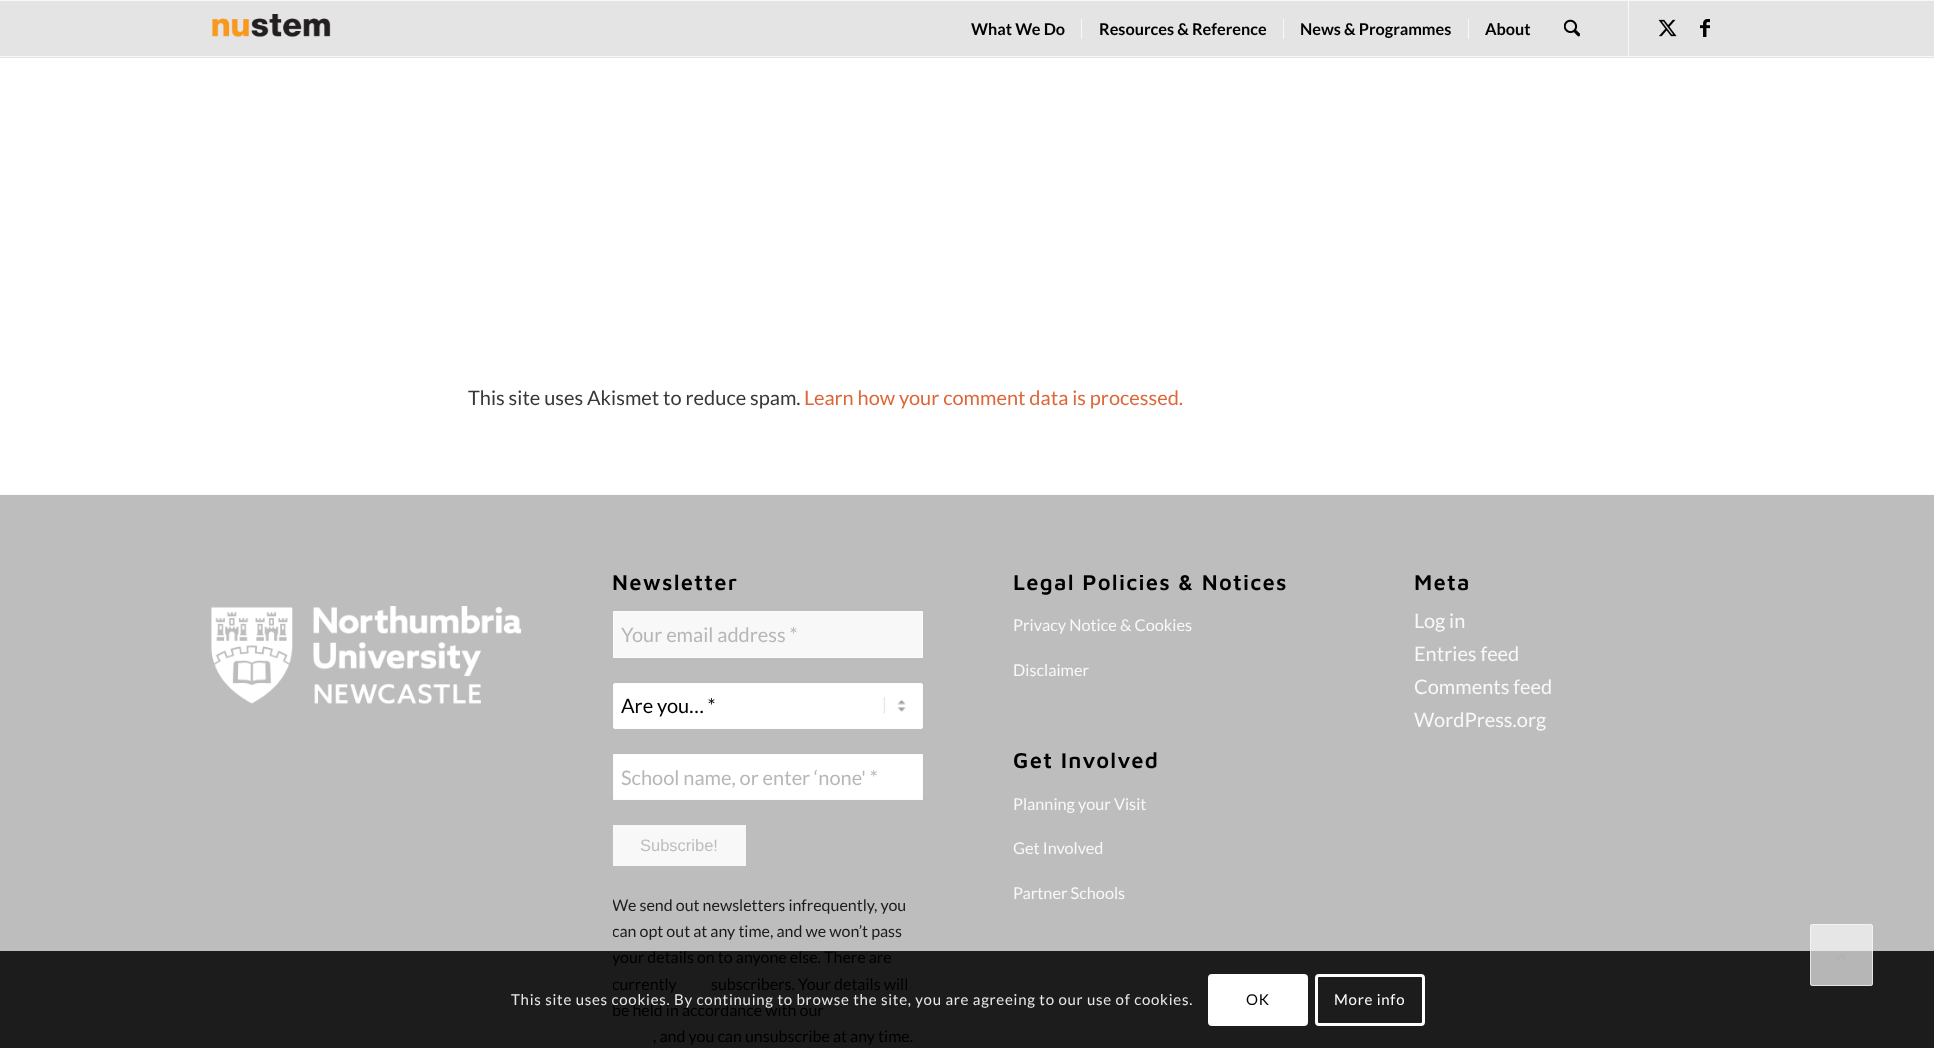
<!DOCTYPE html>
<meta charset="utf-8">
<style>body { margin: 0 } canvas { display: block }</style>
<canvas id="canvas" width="1934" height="1048"></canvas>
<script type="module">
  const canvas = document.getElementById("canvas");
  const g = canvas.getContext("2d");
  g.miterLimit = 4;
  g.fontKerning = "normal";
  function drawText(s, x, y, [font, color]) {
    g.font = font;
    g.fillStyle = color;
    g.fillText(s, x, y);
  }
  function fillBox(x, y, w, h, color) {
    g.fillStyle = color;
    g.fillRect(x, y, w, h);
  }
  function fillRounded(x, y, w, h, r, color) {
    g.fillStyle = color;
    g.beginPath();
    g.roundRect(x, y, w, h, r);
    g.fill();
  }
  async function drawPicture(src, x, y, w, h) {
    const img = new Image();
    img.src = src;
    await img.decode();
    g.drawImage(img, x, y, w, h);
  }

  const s1 = ["bold 16.25px Lato", "#000000"];
  const s2 = ["20px Lato", "#383838"];
  const s3 = ["20px Lato", "#DE6739"];
  const s4 = ["600 22px Maven Pro", "#000000"];
  const s5 = ["20px Lato", "#B7B7B7"];
  const s6 = ["20px Lato", "#000000"];
  const s7 = ["16.5px Liberation Sans", "#BDBDBD"];
  const s8 = ["16px Lato", "#1C1C1C"];
  const s9 = ["16px Lato", "#000000"];
  const s10 = ["16.25px Lato", "#F8F8F8"];
  const s11 = ["20px Lato", "#F8F8F8"];
  const s12 = ["15px Lato", "#E8E8E8"];
  const s13 = ["15px Lato", "#000000"];
  const s14 = ["15px Lato", "#FFFFFF"];

  fillBox(0, 0, 1934, 1048, "#FFFFFF");
  fillBox(0, 1, 1934, 57, "#E4E4E4");
  fillBox(0, 0, 1934, 1, "#F8F8F8");
  fillBox(0, 56, 1934, 1, "#F8F8F8");
  await drawPicture("pic1.png", 212, 14, 119, 23);
  fillBox(1628, 1, 1, 55, "#F8F8F8");
  drawText("What We Do", 971, 35, s1);
  drawText("Resources & Reference", 1099, 35, s1);
  fillBox(1081, 19, 1, 20, "#F8F8F8");
  drawText("News & Programmes", 1300, 35, s1);
  fillBox(1283, 19, 1, 20, "#F8F8F8");
  drawText("About", 1485, 35, s1);
  fillBox(1468, 19, 1, 20, "#F8F8F8");
  await drawPicture("pic2.png", 1564, 19, 16, 18);
  await drawPicture("pic3.png", 1658, 19, 19, 18);
  await drawPicture("pic4.png", 1700, 19, 10, 18);
  drawText("This site uses Akismet to reduce spam.", 468, 405, s2);
  drawText("Learn how your comment data is processed.", 804, 405, s3);
  fillBox(0, 495, 1934, 456, "#BDBDBD");
  fillBox(0, 951, 1934, 97, "#1C1C1C");
  fillBox(0, 494, 1934, 1, "#FCFCFC");
  await drawPicture("pic5.png", 211, 606, 311, 98);
  g.letterSpacing = "1.25px";
  drawText("Newsletter", 612, 590, s4);
  g.fillStyle = "#F8F8F8";
  g.beginPath();
  g.rect(613.5, 611.5, 309, 46);
  g.fill();
  g.strokeStyle = "#FCFCFC";
  g.stroke();
  g.letterSpacing = "0px";
  drawText("Your email address *", 621, 642, s5);
  fillRounded(613, 683, 310, 46, 2.5, "#FFFFFF");
  await drawPicture("pic6.png", 883, 697, 23, 17);
  g.beginPath();
  g.roundRect(613.5, 683.5, 309, 45, 2);
  g.stroke();
  drawText("Are you… *", 621, 713, s6);
  g.fillStyle = "#FFFFFF";
  g.beginPath();
  g.rect(613.5, 754.5, 309, 45);
  g.fill();
  g.stroke();
  drawText("School name, or enter ‘none' *", 621, 785, s5);
  fillBox(613, 825, 133, 41, "#F8F8F8");
  drawText("Subscribe!", 640, 851, s7);
  g.save();
  g.beginPath();
  g.rect(613, 551, 310, 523);
  g.clip();
  drawText("We send out newsletters infrequently, you", 612, 911, s8);
  drawText("can opt out at any time, and we won’t pass", 612, 937, s8);
  drawText("your details on to anyone else. There are", 612, 963, s9);
  drawText("currently", 612, 990, s9);
  g.restore();
  drawText("subscribers. Your details will", 711, 990, s9);
  drawText("be held in accordance with our", 612, 1016, s9);
  drawText(", and you can unsubscribe at any time.", 653, 1042, s9);
  g.letterSpacing = "1.25px";
  drawText("Legal Policies & Notices", 1013, 590, s4);
  g.letterSpacing = "0px";
  drawText("Privacy Notice & Cookies", 1013, 631, s10);
  drawText("Disclaimer", 1013, 676, s10);
  g.letterSpacing = "1.25px";
  drawText("Get Involved", 1013, 768, s4);
  g.letterSpacing = "0px";
  drawText("Planning your Visit", 1013, 810, s10);
  drawText("Get Involved", 1013, 854, s10);
  drawText("Partner Schools", 1013, 899, s10);
  g.letterSpacing = "1.25px";
  drawText("Meta", 1414, 590, s4);
  g.letterSpacing = "0px";
  drawText("Log in", 1414, 628, s11);
  drawText("Entries feed", 1414, 661, s11);
  drawText("Comments feed", 1414, 694, s11);
  drawText("WordPress.org", 1414, 727, s11);
  fillRounded(1810, 924, 63, 62, 2.5, "rgba(248, 248, 248, 0.7)");
  g.beginPath();
  g.roundRect(1810.5, 924.5, 62, 61, 2);
  g.strokeStyle = "rgba(248, 248, 248, 0.7)";
  g.stroke();
  await drawPicture("pic7.png", 1837, 954, 9, 6);
  g.letterSpacing = "0.75px";
  drawText("This site uses cookies. By continuing to browse the site, you are agreeing to our use of cookies.", 511, 1005, s12);
  fillRounded(1208, 974, 100, 52, 4, "#FFFFFF");
  drawText("OK", 1246, 1005, s13);
  g.beginPath();
  g.roundRect(1316.5, 975.5, 107, 49, 2.5);
  g.strokeStyle = "#FFFFFF";
  g.lineWidth = 3;
  g.stroke();
  drawText("More info", 1334, 1005, s14);
</script>
